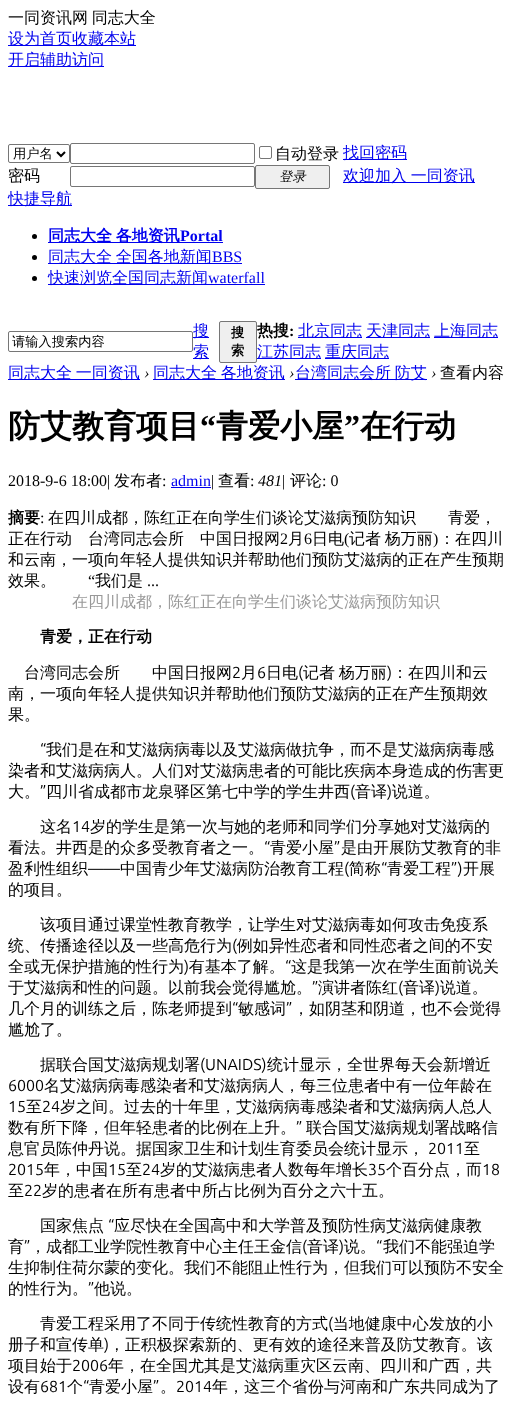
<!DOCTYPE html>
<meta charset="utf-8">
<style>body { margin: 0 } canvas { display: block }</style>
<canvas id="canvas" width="512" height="1408"></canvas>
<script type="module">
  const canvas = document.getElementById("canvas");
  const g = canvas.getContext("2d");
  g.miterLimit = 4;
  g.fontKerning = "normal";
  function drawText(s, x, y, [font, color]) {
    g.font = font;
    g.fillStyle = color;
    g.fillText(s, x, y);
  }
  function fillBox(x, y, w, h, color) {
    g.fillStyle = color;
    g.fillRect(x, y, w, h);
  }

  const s1 = ["500 16px WenQuanYi Zen Hei", "#000000"];
  const s2 = ["500 16px WenQuanYi Zen Hei", "#0000EE"];
  const s3 = ["500 13.25px WenQuanYi Zen Hei", "#000000"];
  const s4 = ["italic 500 13.25px WenQuanYi Zen Hei", "#000000"];
  const s5 = ["bold 16px WenQuanYi Zen Hei", "#0000EE"];
  const s6 = ["bold 16px Liberation Serif", "#0000EE"];
  const s7 = ["16px Liberation Serif", "#0000EE"];
  const s8 = ["bold 13.25px WenQuanYi Zen Hei", "#000000"];
  const s9 = ["bold 16px WenQuanYi Zen Hei", "#000000"];
  const s10 = ["bold 16px Liberation Serif", "#000000"];
  const s11 = ["italic 16px Liberation Serif", "#000000"];
  const s12 = ["bold 32px WenQuanYi Zen Hei", "#000000"];
  const s13 = ["bold 32px Liberation Serif", "#000000"];
  const s14 = ["16px Liberation Serif", "#000000"];
  const s15 = ["500 16px WenQuanYi Zen Hei", "#999999"];
  const s16 = ["16px Ubuntu", "#000000"];

  fillBox(0, 0, 512, 1408, "#FFFFFF");
  g.wordSpacing = "-1px";
  drawText("一同资讯网 同志大全", 8, 23, s1);
  fillBox(8, 45, 128, 1, "#0000EE");
  g.wordSpacing = "0px";
  drawText("设为首页收藏本站", 8, 44, s2);
  fillBox(8, 66, 96, 1, "#0000EE");
  drawText("开启辅助访问", 8, 65, s2);
  g.beginPath();
  g.roundRect(8.5, 144.5, 61, 18, 1.5);
  g.strokeStyle = "#767676";
  g.stroke();
  g.beginPath();
  g.moveTo(57, 152);
  g.lineTo(61, 156);
  g.lineTo(65, 152);
  g.strokeStyle = "#000000";
  g.lineWidth = 2;
  g.stroke();
  drawText("用户名", 13, 158, s3);
  g.beginPath();
  g.roundRect(70.5, 143.5, 184, 20, 1.5);
  g.strokeStyle = "#767676";
  g.lineWidth = 1;
  g.stroke();
  g.beginPath();
  g.roundRect(259.5, 146.5, 12, 12, 1.5);
  g.stroke();
  drawText("自动登录", 275, 159, s1);
  fillBox(343, 159, 64, 1, "#0000EE");
  drawText("找回密码", 343, 158, s2);
  drawText("密码", 8, 181, s1);
  g.beginPath();
  g.roundRect(70.5, 166.5, 184, 20, 1.5);
  g.stroke();
  g.fillStyle = "#EFEFEF";
  g.beginPath();
  g.roundRect(255.5, 165.5, 74, 23, 1.5);
  g.fill();
  g.stroke();
  drawText("登录", 279, 181, s4);
  fillBox(343, 182, 132, 1, "#0000EE");
  g.wordSpacing = "-1px";
  drawText("欢迎加入 一同资讯", 343, 181, s2);
  fillBox(8, 205, 64, 1, "#0000EE");
  g.wordSpacing = "0px";
  drawText("快捷导航", 8, 204, s2);
  g.fillStyle = "#000000";
  g.beginPath();
  g.arc(34.5, 236.5, 2.5, 0, Math.PI * 2);
  g.fill();
  fillBox(48, 242, 175, 1, "#0000EE");
  g.wordSpacing = "-1px";
  drawText("同志大全 各地资讯", 48, 241, s5);
  g.wordSpacing = "0px";
  drawText("Portal", 180, 241, s6);
  g.fillStyle = "#000000";
  g.beginPath();
  g.arc(34.5, 257.5, 2.5, 0, Math.PI * 2);
  g.fill();
  fillBox(48, 263, 194, 1, "#0000EE");
  g.wordSpacing = "-1px";
  drawText("同志大全 全国各地新闻", 48, 262, s2);
  g.wordSpacing = "0px";
  drawText("BBS", 212, 262, s7);
  g.fillStyle = "#000000";
  g.beginPath();
  g.arc(34.5, 278.5, 2.5, 0, Math.PI * 2);
  g.fill();
  fillBox(48, 284, 217, 1, "#0000EE");
  drawText("快速浏览全国同志新闻", 48, 283, s2);
  drawText("waterfall", 208, 283, s7);
  g.beginPath();
  g.roundRect(8.5, 331.5, 184, 20, 1.5);
  g.stroke();
  drawText("请输入搜索内容", 12, 346, s3);
  fillBox(193, 337, 16, 1, "#0000EE");
  drawText("搜", 193, 336, s2);
  fillBox(193, 358, 16, 1, "#0000EE");
  drawText("索", 193, 357, s2);
  g.fillStyle = "#EFEFEF";
  g.beginPath();
  g.roundRect(219.5, 321.5, 37, 41, 1.5);
  g.fill();
  g.stroke();
  drawText("搜", 231, 337, s8);
  drawText("索", 231, 355, s8);
  drawText("热搜", 257, 336, s9);
  drawText(":", 289, 336, s10);
  fillBox(298, 337, 64, 1, "#0000EE");
  drawText("北京同志", 298, 336, s2);
  fillBox(366, 337, 64, 1, "#0000EE");
  drawText("天津同志", 366, 336, s2);
  fillBox(434, 337, 64, 1, "#0000EE");
  drawText("上海同志", 434, 336, s2);
  fillBox(257, 358, 64, 1, "#0000EE");
  drawText("江苏同志", 257, 357, s2);
  fillBox(325, 358, 64, 1, "#0000EE");
  drawText("重庆同志", 325, 357, s2);
  fillBox(8, 379, 132, 1, "#0000EE");
  g.wordSpacing = "-1px";
  drawText("同志大全 一同资讯", 8, 378, s2);
  g.wordSpacing = "0px";
  drawText("›", 144, 378, s11);
  fillBox(153, 379, 132, 1, "#0000EE");
  g.wordSpacing = "-1px";
  drawText("同志大全 各地资讯", 153, 378, s2);
  g.wordSpacing = "0px";
  drawText("›", 289, 378, s11);
  fillBox(295, 379, 132, 1, "#0000EE");
  g.wordSpacing = "-1px";
  drawText("台湾同志会所 防艾", 295, 378, s2);
  g.wordSpacing = "0px";
  drawText("›", 431, 378, s11);
  drawText("查看内容", 440, 378, s1);
  drawText("防艾教育项目", 8, 437, s12);
  drawText("“", 200, 437, s13);
  drawText("青爱小屋", 216, 437, s12);
  drawText("”", 344, 437, s13);
  drawText("在行动", 360, 437, s12);
  drawText("2018-9-6 18:00|", 8, 486, s14);
  drawText("发布者", 114, 486, s1);
  drawText(":", 162, 486, s14);
  drawText("admin", 171, 486, s7);
  fillBox(171, 487, 40, 1, "#0000EE");
  drawText("|", 211, 486, s14);
  drawText("查看", 218, 486, s1);
  drawText(":", 250, 486, s14);
  drawText("481", 258, 486, s11);
  drawText("|", 282, 486, s14);
  drawText("评论", 290, 486, s1);
  drawText(": 0", 322, 486, s14);
  drawText("摘要", 8, 523, s9);
  drawText(":", 40, 523, s14);
  drawText("在四川成都，陈红正在向学生们谈论艾滋病预防知识　　青爱，", 48, 523, s1);
  drawText("正在行动　台湾同志会所　中国日报网", 8, 544, s1);
  drawText("2", 280, 544, s14);
  drawText("月", 288, 544, s1);
  drawText("6", 304, 544, s14);
  drawText("日电", 312, 544, s1);
  drawText("(", 344, 544, s14);
  g.wordSpacing = "-1px";
  drawText("记者 杨万丽", 349, 544, s1);
  g.wordSpacing = "0px";
  drawText(")", 433, 544, s14);
  drawText("：在四川", 439, 544, s1);
  drawText("和云南，一项向年轻人提供知识并帮助他们预防艾滋病的正在产生预期", 8, 565, s1);
  drawText("效果。", 8, 586, s1);
  drawText("“", 88, 586, s14);
  drawText("我们是", 95, 586, s1);
  drawText("...", 147, 586, s14);
  drawText("在四川成都，陈红正在向学生们谈论艾滋病预防知识", 72, 607, s15);
  drawText("青爱，正在行动", 40, 642, s9);
  drawText("台湾同志会所", 24, 678, s1);
  drawText("中国日报网", 152, 678, s1);
  drawText("2", 232, 678, s16);
  drawText("月", 241, 678, s1);
  drawText("6", 257, 678, s16);
  drawText("日电", 266, 678, s1);
  drawText("(", 298, 678, s16);
  g.wordSpacing = "-1px";
  drawText("记者 杨万丽", 303, 678, s1);
  g.wordSpacing = "0px";
  drawText(")", 387, 678, s16);
  drawText("：在四川和云", 392, 678, s1);
  drawText("南，一项向年轻人提供知识并帮助他们预防艾滋病的正在产生预期效", 8, 699, s1);
  drawText("果。", 8, 720, s1);
  drawText("“", 40, 755, s16);
  drawText("我们是在和艾滋病病毒以及艾滋病做抗争，而不是艾滋病病毒感", 46, 755, s1);
  drawText("染者和艾滋病病人。人们对艾滋病患者的可能比疾病本身造成的伤害更", 8, 776, s1);
  drawText("大。", 8, 797, s1);
  drawText("四川省成都市龙泉驿区第七中学的学生井西", 46, 797, s1);
  drawText("(", 350, 797, s16);
  drawText("音译 说道。", 355, 797, s1);
  drawText("”", 40, 797, s16);
  drawText(")", 387, 797, s16);
  drawText("这名", 40, 832, s1);
  drawText("14", 72, 832, s16);
  drawText("岁的学生是第一次与她的老师和同学们分享她对艾滋病的", 90, 832, s1);
  drawText("看法。井西是的众多受教育者之一。", 8, 853, s1);
  drawText("“", 264, 853, s16);
  drawText("青爱小屋", 270, 853, s1);
  drawText("”", 334, 853, s16);
  drawText("是由开展防艾教育的非", 341, 853, s1);
  drawText("盈利性组织", 8, 874, s1);
  drawText("中国青少年艾滋病防治教育工程 简称", 120, 874, s1);
  drawText("青爱工程", 387, 874, s1);
  drawText("——", 88, 874, s16);
  drawText("(", 344, 874, s16);
  drawText("“", 381, 874, s16);
  drawText("”)", 451, 874, s16);
  drawText("开展", 463, 874, s1);
  drawText("的项目。", 8, 895, s1);
  drawText("该项目通过课堂性教育教学，让学生对艾滋病毒如何攻击免疫系", 40, 930, s1);
  drawText("统、传播途径以及一些高危行为 例如异性恋者和同性恋者之间的不安", 8, 951, s1);
  drawText("(", 232, 951, s16);
  drawText("全或无保护措施的性行为 有基本了解。", 8, 972, s1);
  drawText("这是我第一次在学生面前说关", 291, 972, s1);
  drawText(")", 184, 972, s16);
  drawText("“", 285, 972, s16);
  drawText("于艾滋病和性的问题。以前我会觉得尴尬。", 8, 993, s1);
  drawText("演讲者陈红", 318, 993, s1);
  drawText("(", 398, 993, s16);
  drawText("音译 说道。", 403, 993, s1);
  drawText("”", 312, 993, s16);
  drawText(")", 435, 993, s16);
  drawText("几个月的训练之后，陈老师提到", 8, 1014, s1);
  drawText("“", 232, 1014, s16);
  drawText("敏感词", 238, 1014, s1);
  drawText("”", 286, 1014, s16);
  drawText("，如阴茎和阴道，也不会觉得", 293, 1014, s1);
  drawText("尴尬了。", 8, 1035, s1);
  drawText("据联合国艾滋病规划署", 40, 1070, s1);
  drawText("(UNAIDS)", 200, 1070, s16);
  drawText("统计显示，全世界每天会新增近", 267, 1070, s1);
  drawText("6000", 8, 1091, s16);
  drawText("名艾滋病病毒感染者和艾滋病病人，每三位患者中有一位年龄在", 44, 1091, s1);
  drawText("15", 8, 1112, s16);
  drawText("至", 26, 1112, s1);
  drawText("24", 42, 1112, s16);
  drawText("岁之间。过去的十年里，艾滋病病毒感染者和艾滋病病人总人", 60, 1112, s1);
  drawText("数有所下降，但年轻患者的比例在上升。", 8, 1133, s1);
  drawText("”", 296, 1133, s16);
  drawText("联合国艾滋病规划署战略信", 306, 1133, s1);
  drawText("息官员陈仲丹说。据国家卫生和计划生育委员会统计显示，", 8, 1154, s1);
  drawText("2011", 428, 1154, s16);
  drawText("至", 464, 1154, s1);
  drawText("2015", 8, 1175, s16);
  drawText("年，中国", 44, 1175, s1);
  drawText("15", 108, 1175, s16);
  drawText("至", 126, 1175, s1);
  drawText("24", 142, 1175, s16);
  drawText("岁的艾滋病患者人数每年增长", 160, 1175, s1);
  drawText("35", 368, 1175, s16);
  drawText("个百分点，而", 386, 1175, s1);
  drawText("18", 482, 1175, s16);
  drawText("至", 8, 1196, s1);
  drawText("22", 24, 1196, s16);
  drawText("岁的患者在所有患者中所占比例为百分之六十五。", 42, 1196, s1);
  drawText("国家焦点", 40, 1231, s1);
  drawText("“", 108, 1231, s16);
  drawText("应尽快在全国高中和大学普及预防性病艾滋病健康教", 114, 1231, s1);
  drawText("育", 8, 1252, s1);
  drawText("，成都工业学院性教育中心主任王金信", 30, 1252, s1);
  drawText("(", 302, 1252, s16);
  drawText("音译 说。", 307, 1252, s1);
  drawText("我们不能强迫学", 383, 1252, s1);
  drawText("”", 24, 1252, s16);
  drawText(")", 339, 1252, s16);
  drawText("“", 376, 1252, s16);
  drawText("生抑制住荷尔蒙的变化。我们不能阻止性行为，但我们可以预防不安全", 8, 1273, s1);
  drawText("的性行为。", 8, 1294, s1);
  drawText("”", 88, 1294, s16);
  drawText("他说。", 94, 1294, s1);
  drawText("青爱工程采用了不同于传统性教育的方式 当地健康中心发放的小", 40, 1329, s1);
  drawText("(", 328, 1329, s16);
  drawText("册子和宣传单 ，正积极探索新的、更有效的途径来普及防艾教育。该", 8, 1350, s1);
  drawText(")", 104, 1350, s16);
  drawText("项目始于", 8, 1371, s1);
  drawText("2006", 72, 1371, s16);
  drawText("年，在全国尤其是艾滋病重灾区云南、四川和广西，共", 108, 1371, s1);
  drawText("设有", 8, 1392, s1);
  drawText("681", 40, 1392, s16);
  drawText("个", 67, 1392, s1);
  drawText("“", 83, 1392, s16);
  drawText("青爱小屋", 89, 1392, s1);
  drawText("”", 153, 1392, s16);
  drawText("。", 160, 1392, s1);
  drawText("2014", 176, 1392, s16);
  drawText("年，这三个省份与河南和广东共同成为了", 212, 1392, s1);
</script>
